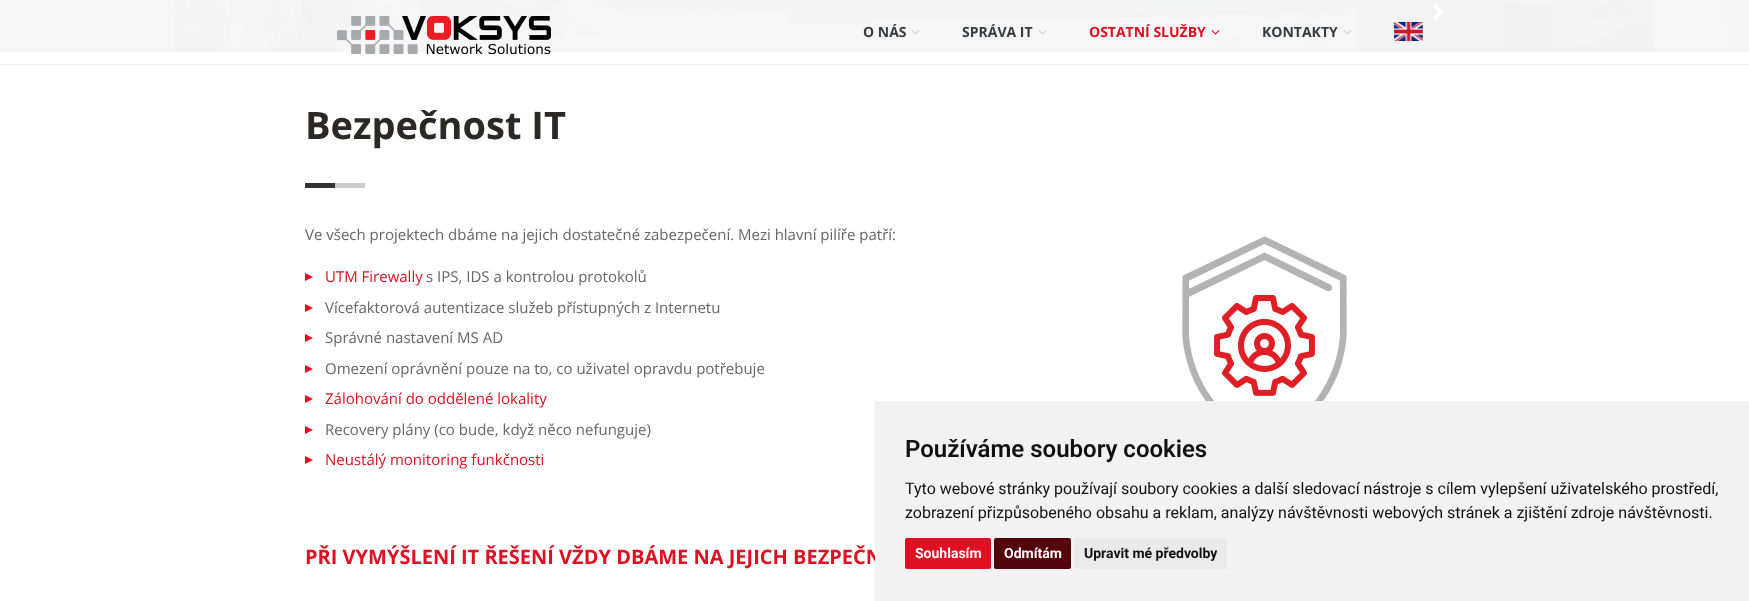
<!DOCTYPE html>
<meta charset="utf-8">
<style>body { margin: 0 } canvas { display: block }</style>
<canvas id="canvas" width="1749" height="601"></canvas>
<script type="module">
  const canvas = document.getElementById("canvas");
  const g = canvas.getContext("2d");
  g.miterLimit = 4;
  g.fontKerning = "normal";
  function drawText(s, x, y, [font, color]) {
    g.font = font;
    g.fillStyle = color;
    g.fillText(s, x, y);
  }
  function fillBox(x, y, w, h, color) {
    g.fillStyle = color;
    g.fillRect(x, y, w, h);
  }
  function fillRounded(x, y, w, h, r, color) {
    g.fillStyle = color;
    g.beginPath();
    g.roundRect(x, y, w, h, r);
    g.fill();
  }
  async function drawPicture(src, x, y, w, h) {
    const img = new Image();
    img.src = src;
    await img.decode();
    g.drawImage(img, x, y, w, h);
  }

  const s1 = ["bold 14px Open Sans", "#373B40"];
  const s2 = ["bold 14px Open Sans", "#E00F21"];
  const s3 = ["bold 38px Open Sans", "#2C2925"];
  const s4 = ["15px Open Sans", "#666666"];
  const s5 = ["15px Open Sans", "#E00F21"];
  const s6 = ["bold 20px Open Sans", "#E00F21"];
  const s7 = ["600 24px Roboto", "#111111"];
  const s8 = ["16px Roboto", "#111111"];
  const s9 = ["bold 14px Roboto", "#FFFFFF"];
  const s10 = ["bold 14px Roboto", "#111111"];

  fillBox(0, 0, 1749, 601, "#FFFFFF");
  await drawPicture("pic1.png", 0, 0, 1749, 52);
  await drawPicture("pic2.png", 1432, 3, 12, 17);
  fillBox(0, 64, 1749, 1, "#F1F1F1");
  await drawPicture("pic3.png", 337, 16, 214, 38);
  drawText("O NÁS", 863, 37, s1);
  await drawPicture("pic4.png", 911, 30, 9, 5);
  drawText("SPRÁVA IT", 962, 37, s1);
  await drawPicture("pic5.png", 1038, 30, 9, 5);
  drawText("OSTATNÍ SLUŽBY", 1089, 37, s2);
  await drawPicture("pic6.png", 1211, 30, 9, 5);
  drawText("KONTAKTY", 1262, 37, s1);
  await drawPicture("pic7.png", 1343, 30, 9, 5);
  await drawPicture("pic8.png", 1394, 22, 29, 19);
  drawText("Bezpečnost IT", 305, 139, s3);
  fillBox(335, 183, 30, 5, "#CCCCCC");
  fillBox(305, 183, 30, 5, "#333333");
  drawText("Ve všech projektech dbáme na jejich dostatečné zabezpečení. Mezi hlavní pilíře patří:", 305, 240, s4);
  g.fillStyle = "#E00F21";
  g.beginPath();
  g.moveTo(305, 281);
  g.lineTo(305, 273);
  g.lineTo(313, 277);
  g.closePath();
  g.fill();
  drawText("UTM Firewally", 325, 282, s5);
  drawText("s IPS, IDS a kontrolou protokolů", 426, 282, s4);
  g.fillStyle = "#E00F21";
  g.beginPath();
  g.moveTo(305, 312);
  g.lineTo(305, 304);
  g.lineTo(313, 308);
  g.closePath();
  g.fill();
  drawText("Vícefaktorová autentizace služeb přístupných z Internetu", 325, 313, s4);
  g.fillStyle = "#E00F21";
  g.beginPath();
  g.moveTo(305, 342);
  g.lineTo(305, 334);
  g.lineTo(313, 338);
  g.closePath();
  g.fill();
  drawText("Správné nastavení MS AD", 325, 343, s4);
  g.fillStyle = "#E00F21";
  g.beginPath();
  g.moveTo(305, 373);
  g.lineTo(305, 365);
  g.lineTo(313, 369);
  g.closePath();
  g.fill();
  drawText("Omezení oprávnění pouze na to, co uživatel opravdu potřebuje", 325, 374, s4);
  g.fillStyle = "#E00F21";
  g.beginPath();
  g.moveTo(305, 403);
  g.lineTo(305, 395);
  g.lineTo(313, 399);
  g.closePath();
  g.fill();
  drawText("Zálohování do oddělené lokality", 325, 404, s5);
  g.beginPath();
  g.moveTo(305, 434);
  g.lineTo(305, 426);
  g.lineTo(313, 430);
  g.closePath();
  g.fill();
  drawText("Recovery plány (co bude, když něco nefunguje)", 325, 435, s4);
  g.fillStyle = "#E00F21";
  g.beginPath();
  g.moveTo(305, 464);
  g.lineTo(305, 456);
  g.lineTo(313, 460);
  g.closePath();
  g.fill();
  drawText("Neustálý monitoring funkčnosti", 325, 465, s5);
  await drawPicture("pic9.png", 1182, 236, 165, 165);
  drawText("PŘI VYMÝŠLENÍ IT ŘEŠENÍ VŽDY DBÁME NA JEJICH BEZPEČN", 305, 564, s6);
  fillBox(875, 401, 874, 200, "#F2F2F2");
  drawText("Používáme soubory cookies", 905, 457, s7);
  drawText("Tyto webové stránky používají soubory cookies a další sledovací nástroje s cílem vylepšení uživatelského prostředí,", 905, 494, s8);
  drawText("zobrazení přizpůsobeného obsahu a reklam, analýzy návštěvnosti webových stránek a zjištění zdroje návštěvnosti.", 905, 518, s8);
  fillRounded(905, 538, 86, 31, 2, "#E00F21");
  drawText("Souhlasím", 915, 558, s9);
  fillRounded(994, 538, 77, 31, 2, "#54040B");
  drawText("Odmítám", 1004, 558, s9);
  fillRounded(1074, 538, 153, 31, 2, "#EAEAEA");
  drawText("Upravit mé předvolby", 1084, 558, s10);
</script>
